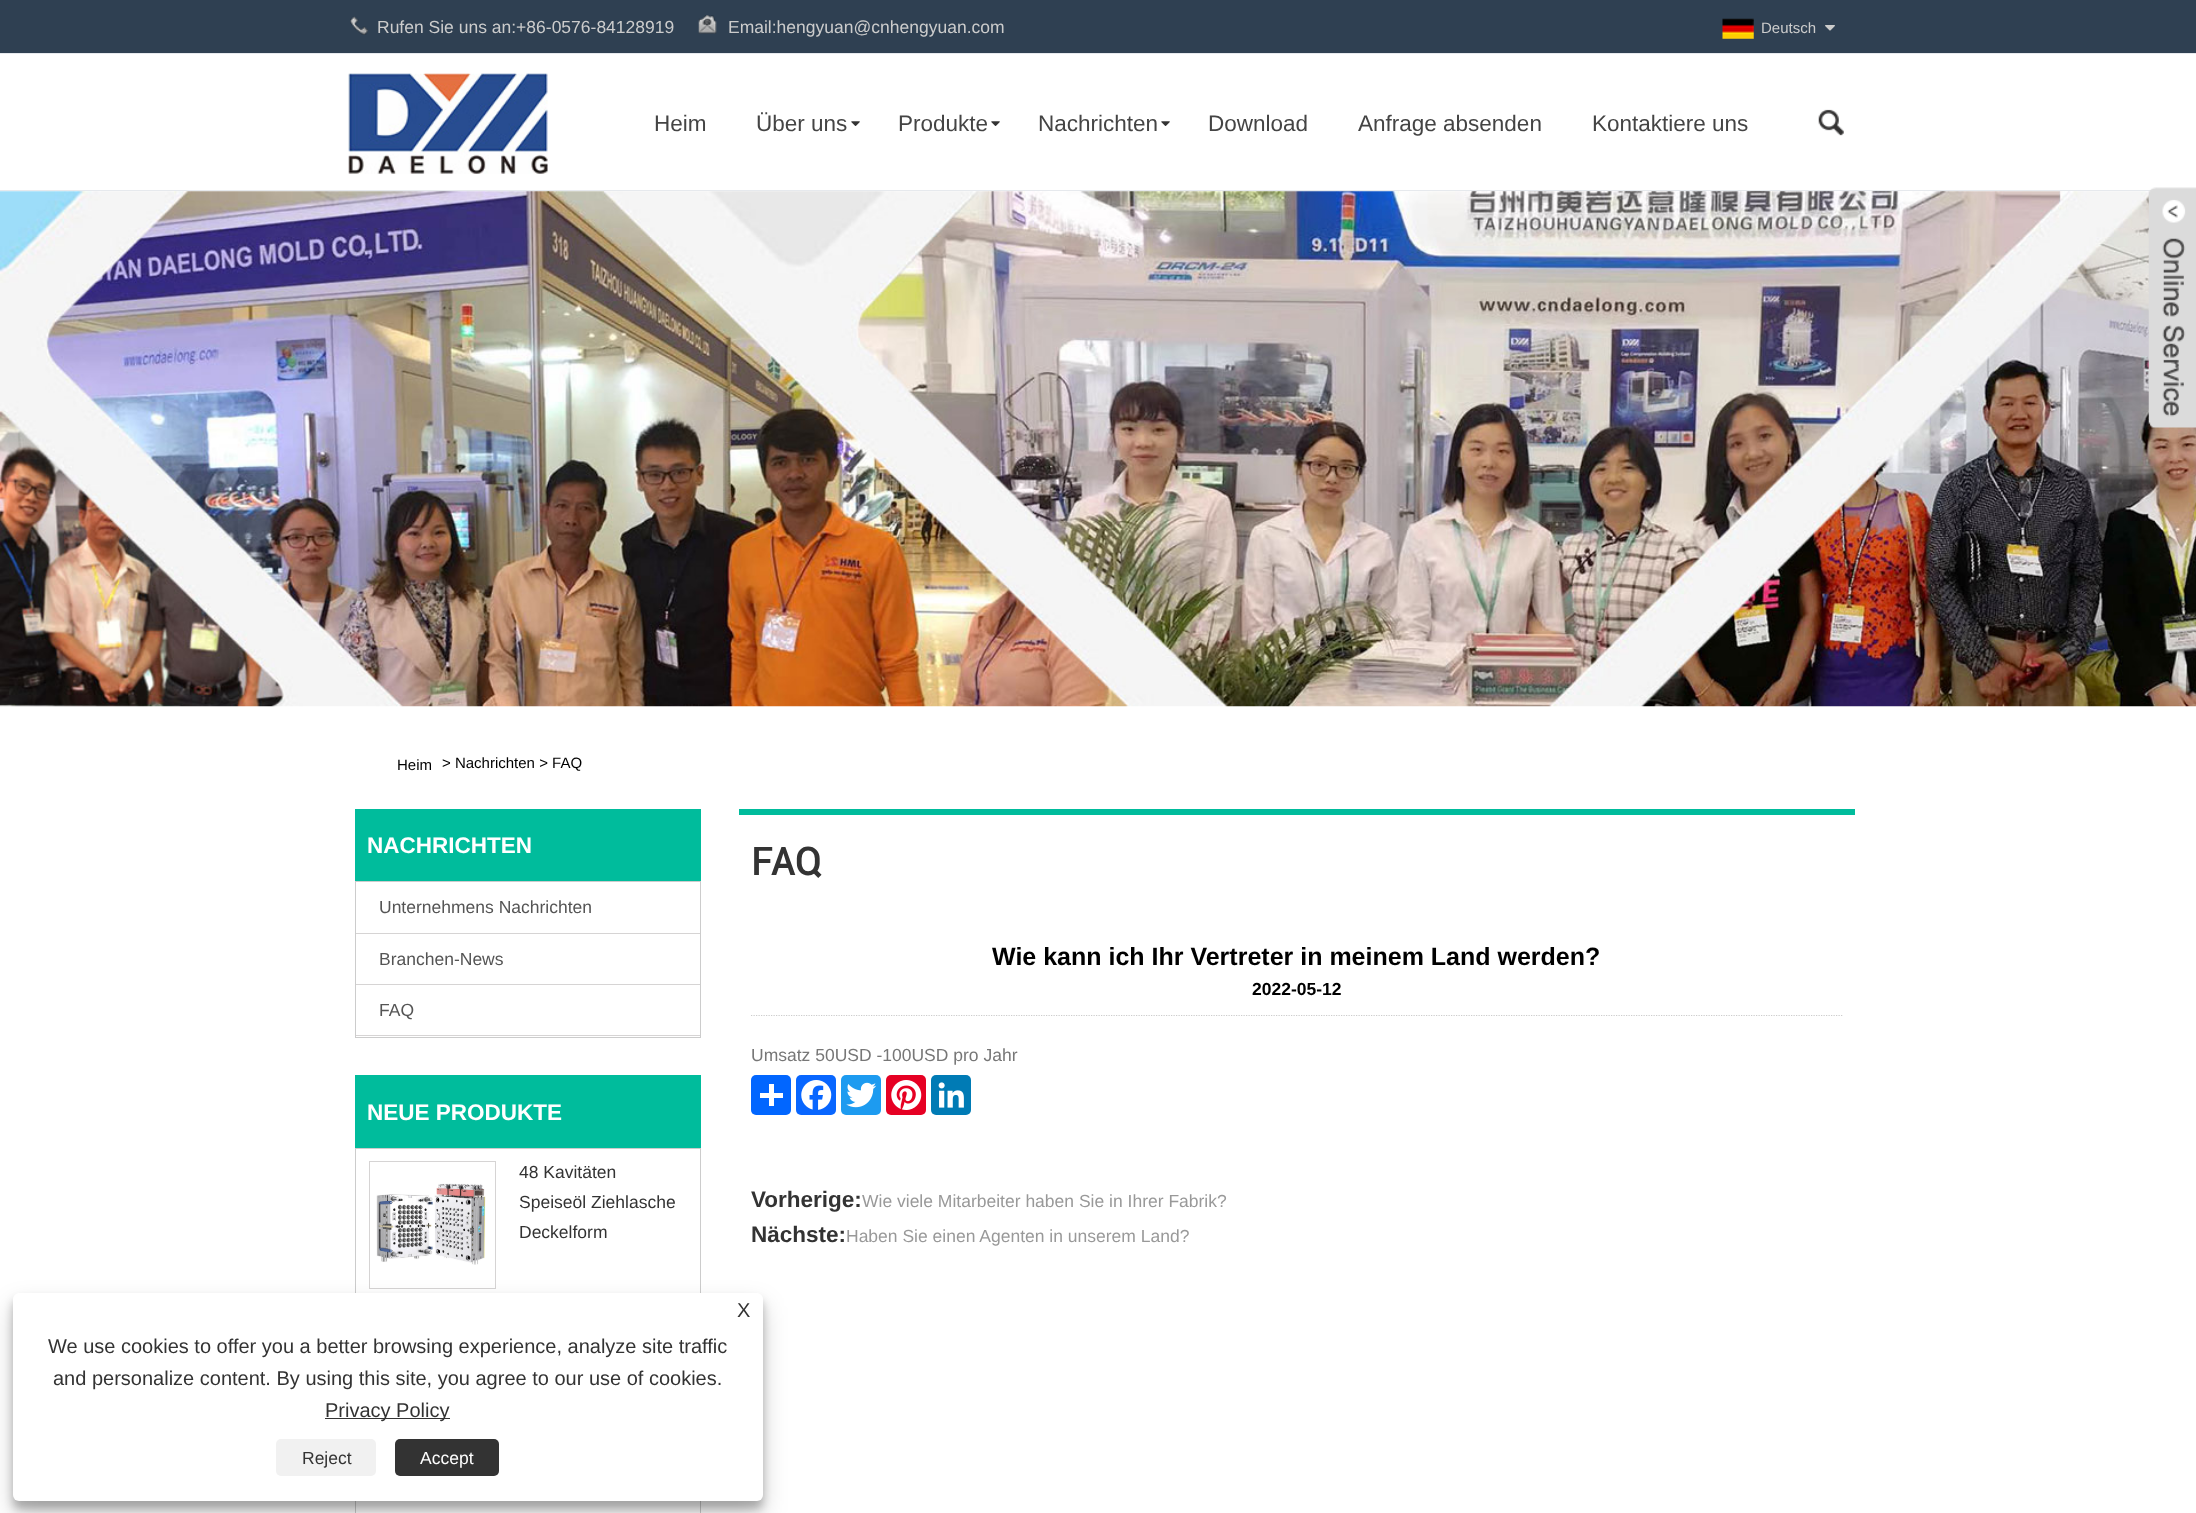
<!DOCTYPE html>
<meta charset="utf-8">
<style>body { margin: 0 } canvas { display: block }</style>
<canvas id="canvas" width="2196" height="1513"></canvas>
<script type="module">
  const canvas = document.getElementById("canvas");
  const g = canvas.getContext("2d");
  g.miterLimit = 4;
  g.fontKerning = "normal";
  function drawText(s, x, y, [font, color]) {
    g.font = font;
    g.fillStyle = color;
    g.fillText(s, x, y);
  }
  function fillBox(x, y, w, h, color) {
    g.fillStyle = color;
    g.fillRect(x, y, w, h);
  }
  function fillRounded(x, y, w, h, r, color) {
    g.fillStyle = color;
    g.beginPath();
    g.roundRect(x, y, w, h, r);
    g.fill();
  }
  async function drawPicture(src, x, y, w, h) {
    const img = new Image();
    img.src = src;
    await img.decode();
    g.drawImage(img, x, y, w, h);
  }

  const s1 = ["17.5px Liberation Sans", "#CCCCCC"];
  const s2 = ["15px Liberation Sans", "#CCCCCC"];
  const s3 = ["22.5px Liberation Sans", "#444444"];
  const s4 = ["15px Liberation Sans", "#000000"];
  const s5 = ["bold 22.5px Liberation Sans", "#FFFFFF"];
  const s6 = ["17.5px Liberation Sans", "#555555"];
  const s7 = ["17.5px Liberation Sans", "#333333"];
  const s8 = ["bold 38px Roboto", "#333333"];
  const s9 = ["bold 25px Liberation Sans", "#000000"];
  const s10 = ["bold 17.5px Liberation Sans", "#000000"];
  const s11 = ["17.5px Liberation Sans", "#777777"];
  const s12 = ["bold 22.5px Liberation Sans", "#333333"];
  const s13 = ["17.5px Liberation Sans", "#999999"];
  const s14 = ["20px Liberation Sans", "#333333"];
  const s15 = ["17.5px Liberation Sans", "#FFFFFF"];

  fillBox(0, 0, 2196, 1513, "#FFFFFF");
  fillBox(0, 0, 2196, 53, "#2F4052");
  fillBox(0, 53, 2196, 1, "#E6E9ED");
  await drawPicture("pic1.png", 350, 16, 18, 19);
  drawText("Rufen Sie uns an:+86-0576-84128919", 377, 33, s1);
  await drawPicture("pic2.png", 698, 15, 19, 19);
  drawText("Email:hengyuan@cnhengyuan.com", 728, 33, s1);
  await drawPicture("pic3.png", 1722, 18, 32, 21);
  drawText("Deutsch", 1761, 33, s2);
  await drawPicture("pic4.png", 1825, 25, 10, 6);
  fillBox(0, 190, 2153, 1, "#E6E9ED");
  await drawPicture("pic5.png", 348, 73, 200, 101);
  drawText("Heim", 654, 131, s3);
  drawText("Über uns", 756, 131, s3);
  await drawPicture("pic6.png", 851, 121, 9, 5);
  drawText("Produkte", 898, 131, s3);
  await drawPicture("pic6.png", 991, 121, 9, 5);
  drawText("Nachrichten", 1038, 131, s3);
  await drawPicture("pic6.png", 1161, 121, 9, 5);
  drawText("Download", 1208, 131, s3);
  drawText("Anfrage absenden", 1358, 131, s3);
  drawText("Kontaktiere uns", 1592, 131, s3);
  await drawPicture("pic7.png", 1818, 109, 26, 27);
  await drawPicture("pic9.png", 0, 191, 2196, 516);
  await drawPicture("pic8.png", 2148, 187, 48, 241);
  drawText("Heim", 397, 770, s4);
  drawText("> Nachrichten > FAQ", 442, 768, s4);
  fillBox(355, 809, 346, 72, "#00BC9C");
  drawText("NACHRICHTEN", 367, 853, s5);
  g.strokeStyle = "#CCCCCC";
  g.strokeRect(355.5, 881.5, 345, 156);
  fillBox(356, 933, 344, 1, "#D6D4D4");
  drawText("Unternehmens Nachrichten", 379, 913, s6);
  fillBox(356, 984, 344, 1, "#D6D4D4");
  drawText("Branchen-News", 379, 965, s6);
  fillBox(356, 1035, 344, 1, "#D6D4D4");
  drawText("FAQ", 379, 1016, s6);
  fillBox(355, 1075, 346, 73, "#00BC9C");
  drawText("NEUE PRODUKTE", 367, 1120, s5);
  g.strokeRect(355.5, 1148.5, 345, 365);
  g.strokeStyle = "#D6D4D4";
  g.strokeRect(369.5, 1161.5, 126, 127);
  await drawPicture("pic10.png", 376, 1183, 110, 82);
  drawText("48 Kavitäten", 519, 1178, s7);
  drawText("Speiseöl Ziehlasche", 519, 1208, s7);
  drawText("Deckelform", 519, 1238, s7);
  fillBox(739, 809, 1116, 6, "#00BC9C");
  drawText("FAQ", 751, 875, s8);
  g.beginPath();
  g.moveTo(751, 1015.5);
  g.lineTo(1842.5, 1015.5);
  g.strokeStyle = "#CCCCCC";
  g.lineWidth = 1.2;
  g.setLineDash([1.25, 1.25]);
  g.stroke();
  drawText("Wie kann ich Ihr Vertreter in meinem Land werden?", 992, 965, s9);
  drawText("2022-05-12", 1252, 995, s10);
  drawText("Umsatz 50USD -100USD pro Jahr", 751, 1061, s11);
  fillRounded(751, 1075, 40, 40, 5, "#0166FF");
  fillBox(769, 1084, 5, 22, "#FFFFFF");
  fillBox(760, 1093, 23, 5, "#FFFFFF");
  fillRounded(796, 1075, 40, 40, 5, "#0866FF");
  await drawPicture("pic11.png", 801, 1080, 31, 30);
  fillRounded(841, 1075, 40, 40, 5, "#1D9BF0");
  await drawPicture("pic12.png", 846, 1082, 31, 26);
  fillRounded(886, 1075, 40, 40, 5, "#E60023");
  await drawPicture("pic13.png", 891, 1080, 31, 30);
  fillRounded(931, 1075, 40, 40, 5, "#007BB5");
  await drawPicture("pic14.png", 938, 1082, 26, 26);
  drawText("Vorherige:", 751, 1207, s12);
  drawText("Wie viele Mitarbeiter haben Sie in Ihrer Fabrik?", 862, 1207, s13);
  drawText("Nächste:", 751, 1242, s12);
  drawText("Haben Sie einen Agenten in unserem Land?", 846, 1242, s13);
  g.fillStyle = "rgba(0, 0, 0, 0.23)";
  g.filter = "blur(4px)";
  g.beginPath();
  g.roundRect(13, 1300, 750, 209, 6);
  g.fill();
  g.filter = "none";
  g.fillStyle = "rgba(0, 0, 0, 0.19)";
  g.filter = "blur(12.5px)";
  g.beginPath();
  g.roundRect(13, 1305, 750, 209, 6);
  g.fill();
  g.filter = "none";
  fillRounded(13, 1293, 750, 208, 6, "#FFFFFF");
  drawText("X", 737, 1317, s14);
  drawText("We use cookies to offer you a better browsing experience, analyze site traffic", 48, 1353, s14);
  drawText("and personalize content. By using this site, you agree to our use of cookies.", 53, 1385, s14);
  fillBox(325, 1418, 125, 1, "#333333");
  drawText("Privacy Policy", 325, 1417, s14);
  fillRounded(276, 1439, 100, 37, 5, "#F1F1F1");
  drawText("Reject", 302, 1464, s7);
  fillRounded(395, 1439, 104, 37, 5, "#333333");
  drawText("Accept", 420, 1464, s15);
</script>
